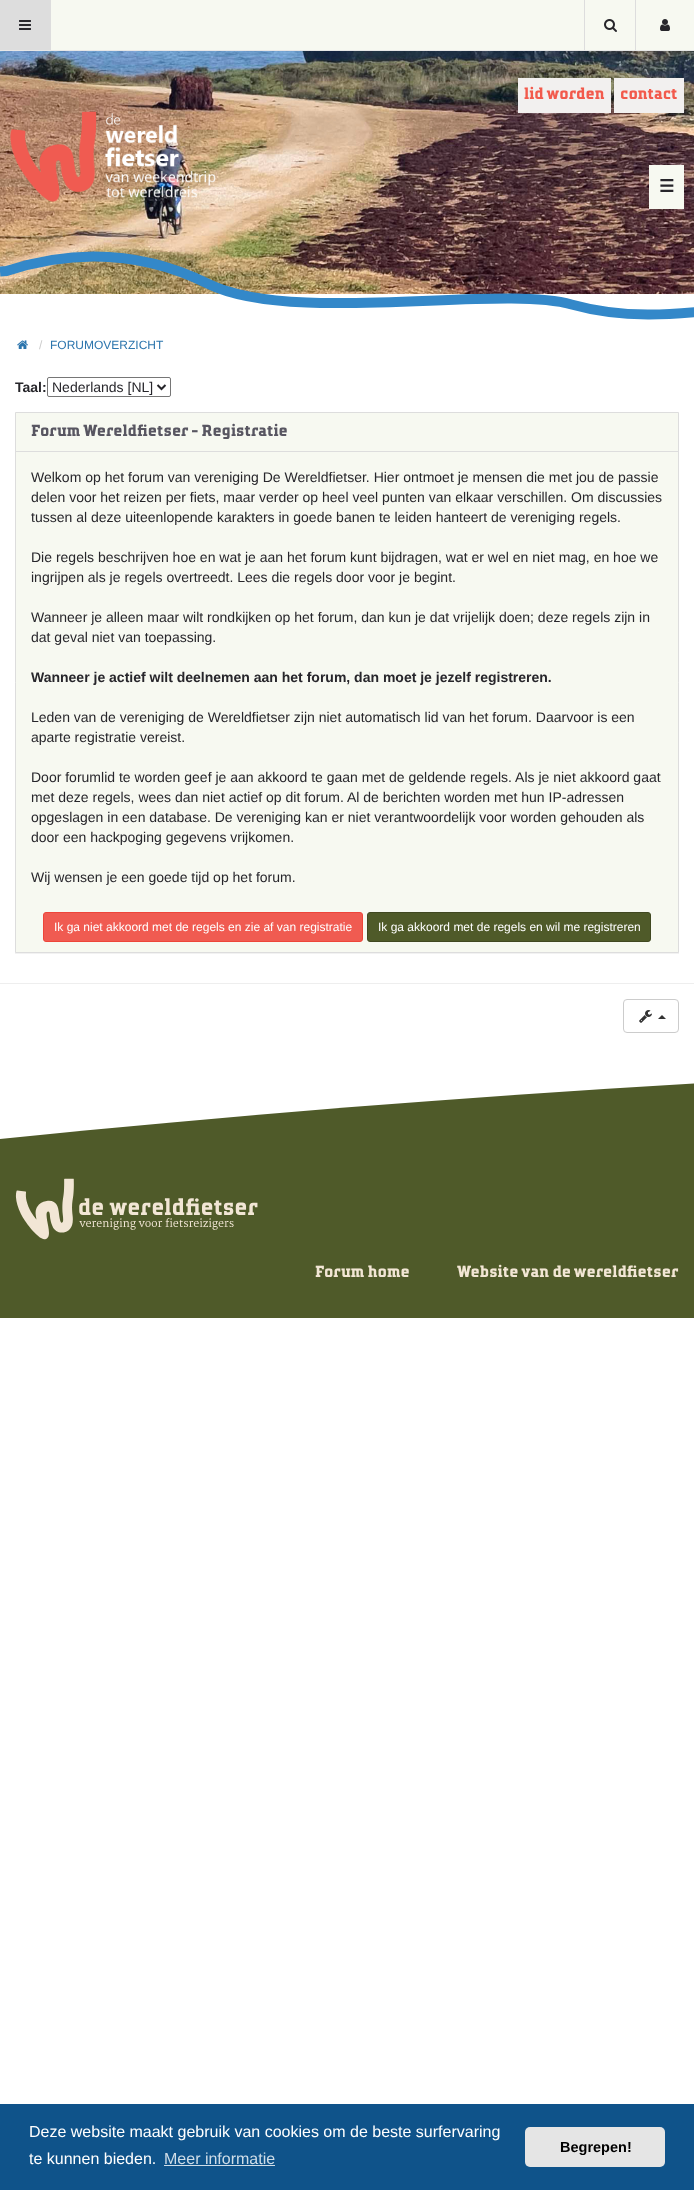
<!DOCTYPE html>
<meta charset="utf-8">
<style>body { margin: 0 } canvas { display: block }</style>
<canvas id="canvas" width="694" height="2190"></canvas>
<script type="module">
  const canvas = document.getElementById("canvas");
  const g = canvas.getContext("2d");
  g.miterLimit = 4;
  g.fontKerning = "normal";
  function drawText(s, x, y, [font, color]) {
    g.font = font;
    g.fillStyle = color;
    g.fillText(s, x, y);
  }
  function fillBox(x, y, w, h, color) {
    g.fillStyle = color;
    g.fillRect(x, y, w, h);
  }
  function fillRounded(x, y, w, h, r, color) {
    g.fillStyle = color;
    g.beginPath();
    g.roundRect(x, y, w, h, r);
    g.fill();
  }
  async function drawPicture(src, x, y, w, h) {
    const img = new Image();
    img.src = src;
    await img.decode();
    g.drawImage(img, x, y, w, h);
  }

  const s1 = ["bold 16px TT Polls", "#F25A4C"];
  const s2 = ["bold 17px DejaVu Sans", "#27262B"];
  const s3 = ["12px Liberation Sans", "#CCCCCC"];
  const s4 = ["12px Liberation Sans", "#2C75AD"];
  const s5 = ["bold 14px Liberation Sans", "#27262B"];
  const s6 = ["14px Liberation Sans", "#27262B"];
  const s7 = ["bold 16px TT Polls", "#585661"];
  const s8 = ["12px Liberation Sans", "#FFFFFF"];
  const s9 = ["bold 16px TT Polls", "#F2E6D4"];
  const s10 = ["16px Liberation Sans", "#FFFFFF"];
  const s11 = ["16px Liberation Sans", "#CFDDE8"];
  const s12 = ["bold 14.5px Liberation Sans", "#000000"];

  fillBox(0, 0, 694, 2190, "#FFFFFF");
  fillBox(51, 0, 643, 50, "#F7F9F1");
  fillBox(0, 50, 694, 1, "#E7E7E7");
  fillBox(0, 0, 51, 50, "#DDDDDD");
  await drawPicture("pic1.png", 19, 20, 12, 10);
  fillBox(584, 0, 1, 50, "#DDDDDD");
  await drawPicture("pic2.png", 604, 19, 13, 13);
  fillBox(635, 0, 1, 50, "#DDDDDD");
  await drawPicture("pic3.png", 660, 19, 10, 12);
  await drawPicture("pic4.png", 0, 51, 694, 243);
  fillBox(518, 78, 93, 35, "#F2F0EF");
  drawText("lid worden", 524, 99, s1);
  fillBox(614, 78, 70, 35, "#F2F0EF");
  drawText("contact", 620, 99, s1);
  await drawPicture("pic5.png", 10, 111, 206, 91);
  fillBox(649, 165, 35, 44, "#F7F9F1");
  drawText("☰", 659, 192, s2);
  g.beginPath();
  g.moveTo(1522, 282);
  g.bezierCurveTo(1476, 283, 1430, 281.5, 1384.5, 277);
  g.bezierCurveTo(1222.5, 260.5, 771, 308.5, 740.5, 308.5);
  g.bezierCurveTo(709.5, 308.5, 643, 324.5, 571.5, 304.5);
  g.bezierCurveTo(500.5, 284.5, 292, 325, 208.5, 284);
  g.bezierCurveTo(145, 252.5, 77.5, 248, 6.5, 271);
  g.lineTo(0, 271.5);
  g.strokeStyle = "#3388C9";
  g.lineWidth = 10;
  g.stroke();
  await drawPicture("pic6.png", 17, 340, 11, 9);
  drawText("/", 39, 349, s3);
  drawText("FORUMOVERZICHT", 50, 349, s4);
  drawText("Taal:", 15, 392, s5);
  g.beginPath();
  g.roundRect(47.5, 377.5, 123, 19, 1.5);
  g.strokeStyle = "#767676";
  g.lineWidth = 1;
  g.stroke();
  g.beginPath();
  g.moveTo(157.5, 385);
  g.lineTo(161.5, 389);
  g.lineTo(165.5, 385);
  g.strokeStyle = "#27262B";
  g.lineWidth = 2;
  g.stroke();
  drawText("Nederlands [NL]", 52, 392, s6);
  g.fillStyle = "rgba(0, 0, 0, 0.05)";
  g.filter = "blur(0.5px)";
  g.beginPath();
  g.rect(15, 413, 664, 541);
  g.fill();
  g.filter = "none";
  g.fillStyle = "#F7F9F1";
  g.beginPath();
  g.rect(15.5, 412.5, 663, 540);
  g.fill();
  g.strokeStyle = "#DDDDDD";
  g.lineWidth = 1;
  g.stroke();
  fillBox(16, 451, 662, 1, "#DDDDDD");
  drawText("Forum Wereldfietser - Registratie", 31, 436, s7);
  drawText("Welkom op het forum van vereniging De Wereldfietser. Hier ontmoet je mensen die met jou de passie", 31, 482, s6);
  drawText("delen voor het reizen per fiets, maar verder op heel veel punten van elkaar verschillen. Om discussies", 31, 502, s6);
  drawText("tussen al deze uiteenlopende karakters in goede banen te leiden hanteert de vereniging regels.", 31, 522, s6);
  drawText("Die regels beschrijven hoe en wat je aan het forum kunt bijdragen, wat er wel en niet mag, en hoe we", 31, 562, s6);
  drawText("ingrijpen als je regels overtreedt. Lees die regels door voor je begint.", 31, 582, s6);
  drawText("Wanneer je alleen maar wilt rondkijken op het forum, dan kun je dat vrijelijk doen; deze regels zijn in", 31, 622, s6);
  drawText("dat geval niet van toepassing.", 31, 642, s6);
  drawText("Wanneer je actief wilt deelnemen aan het forum, dan moet je jezelf registreren.", 31, 682, s5);
  drawText("Leden van de vereniging de Wereldfietser zijn niet automatisch lid van het forum. Daarvoor is een", 31, 722, s6);
  drawText("aparte registratie vereist.", 31, 742, s6);
  drawText("Door forumlid te worden geef je aan akkoord te gaan met de geldende regels. Als je niet akkoord gaat", 31, 782, s6);
  drawText("met deze regels, wees dan niet actief op dit forum. Al de berichten worden met hun IP-adressen", 31, 802, s6);
  drawText("opgeslagen in een database. De vereniging kan er niet verantwoordelijk voor worden gehouden als", 31, 822, s6);
  drawText("door een hackpoging gegevens vrijkomen.", 31, 842, s6);
  drawText("Wij wensen je een goede tijd op het forum.", 31, 882, s6);
  g.fillStyle = "#F05B51";
  g.beginPath();
  g.roundRect(43.5, 912.5, 319, 29, 2.5);
  g.fill();
  g.strokeStyle = "#EE453A";
  g.stroke();
  drawText("Ik ga niet akkoord met de regels en zie af van registratie", 54, 931, s8);
  g.fillStyle = "#4F5A29";
  g.beginPath();
  g.roundRect(367.5, 912.5, 283, 29, 2.5);
  g.fill();
  g.strokeStyle = "#404821";
  g.stroke();
  drawText("Ik ga akkoord met de regels en wil me registreren", 378, 931, s8);
  fillBox(0, 983, 694, 1, "#EEEEEE");
  g.beginPath();
  g.roundRect(623.5, 999.5, 55, 33, 3.5);
  g.strokeStyle = "#CCCCCC";
  g.stroke();
  await drawPicture("pic7.png", 639, 1010, 13, 13);
  g.fillStyle = "#333333";
  g.beginPath();
  g.moveTo(666, 1019);
  g.lineTo(658, 1019);
  g.lineTo(662, 1015);
  g.closePath();
  g.fill();
  g.fillStyle = "#4F5A29";
  g.beginPath();
  g.moveTo(0, 1139);
  g.bezierCurveTo(532, 1085, 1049, 1058, 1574, 1058);
  g.lineTo(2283, 1058);
  g.bezierCurveTo(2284, 1058, 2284, 1145, 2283, 1318);
  g.lineTo(0, 1318);
  g.closePath();
  g.fill("evenodd");
  await drawPicture("pic8.png", 15, 1178, 243, 62);
  drawText("Forum home", 315, 1277, s9);
  drawText("Website van de wereldfietser", 457, 1277, s9);
  fillBox(0, 2104, 694, 86, "#0F538A");
  drawText("Deze website maakt gebruik van cookies om de beste surfervaring", 29, 2137, s10);
  drawText("te kunnen bieden.", 29, 2164, s10);
  drawText("Meer informatie", 164, 2164, s11);
  fillBox(164, 2165, 111, 1, "#CFDDE8");
  fillRounded(525, 2127, 140, 40, 5, "#E5E5E5");
  drawText("Begrepen!", 560, 2152, s12);
</script>
